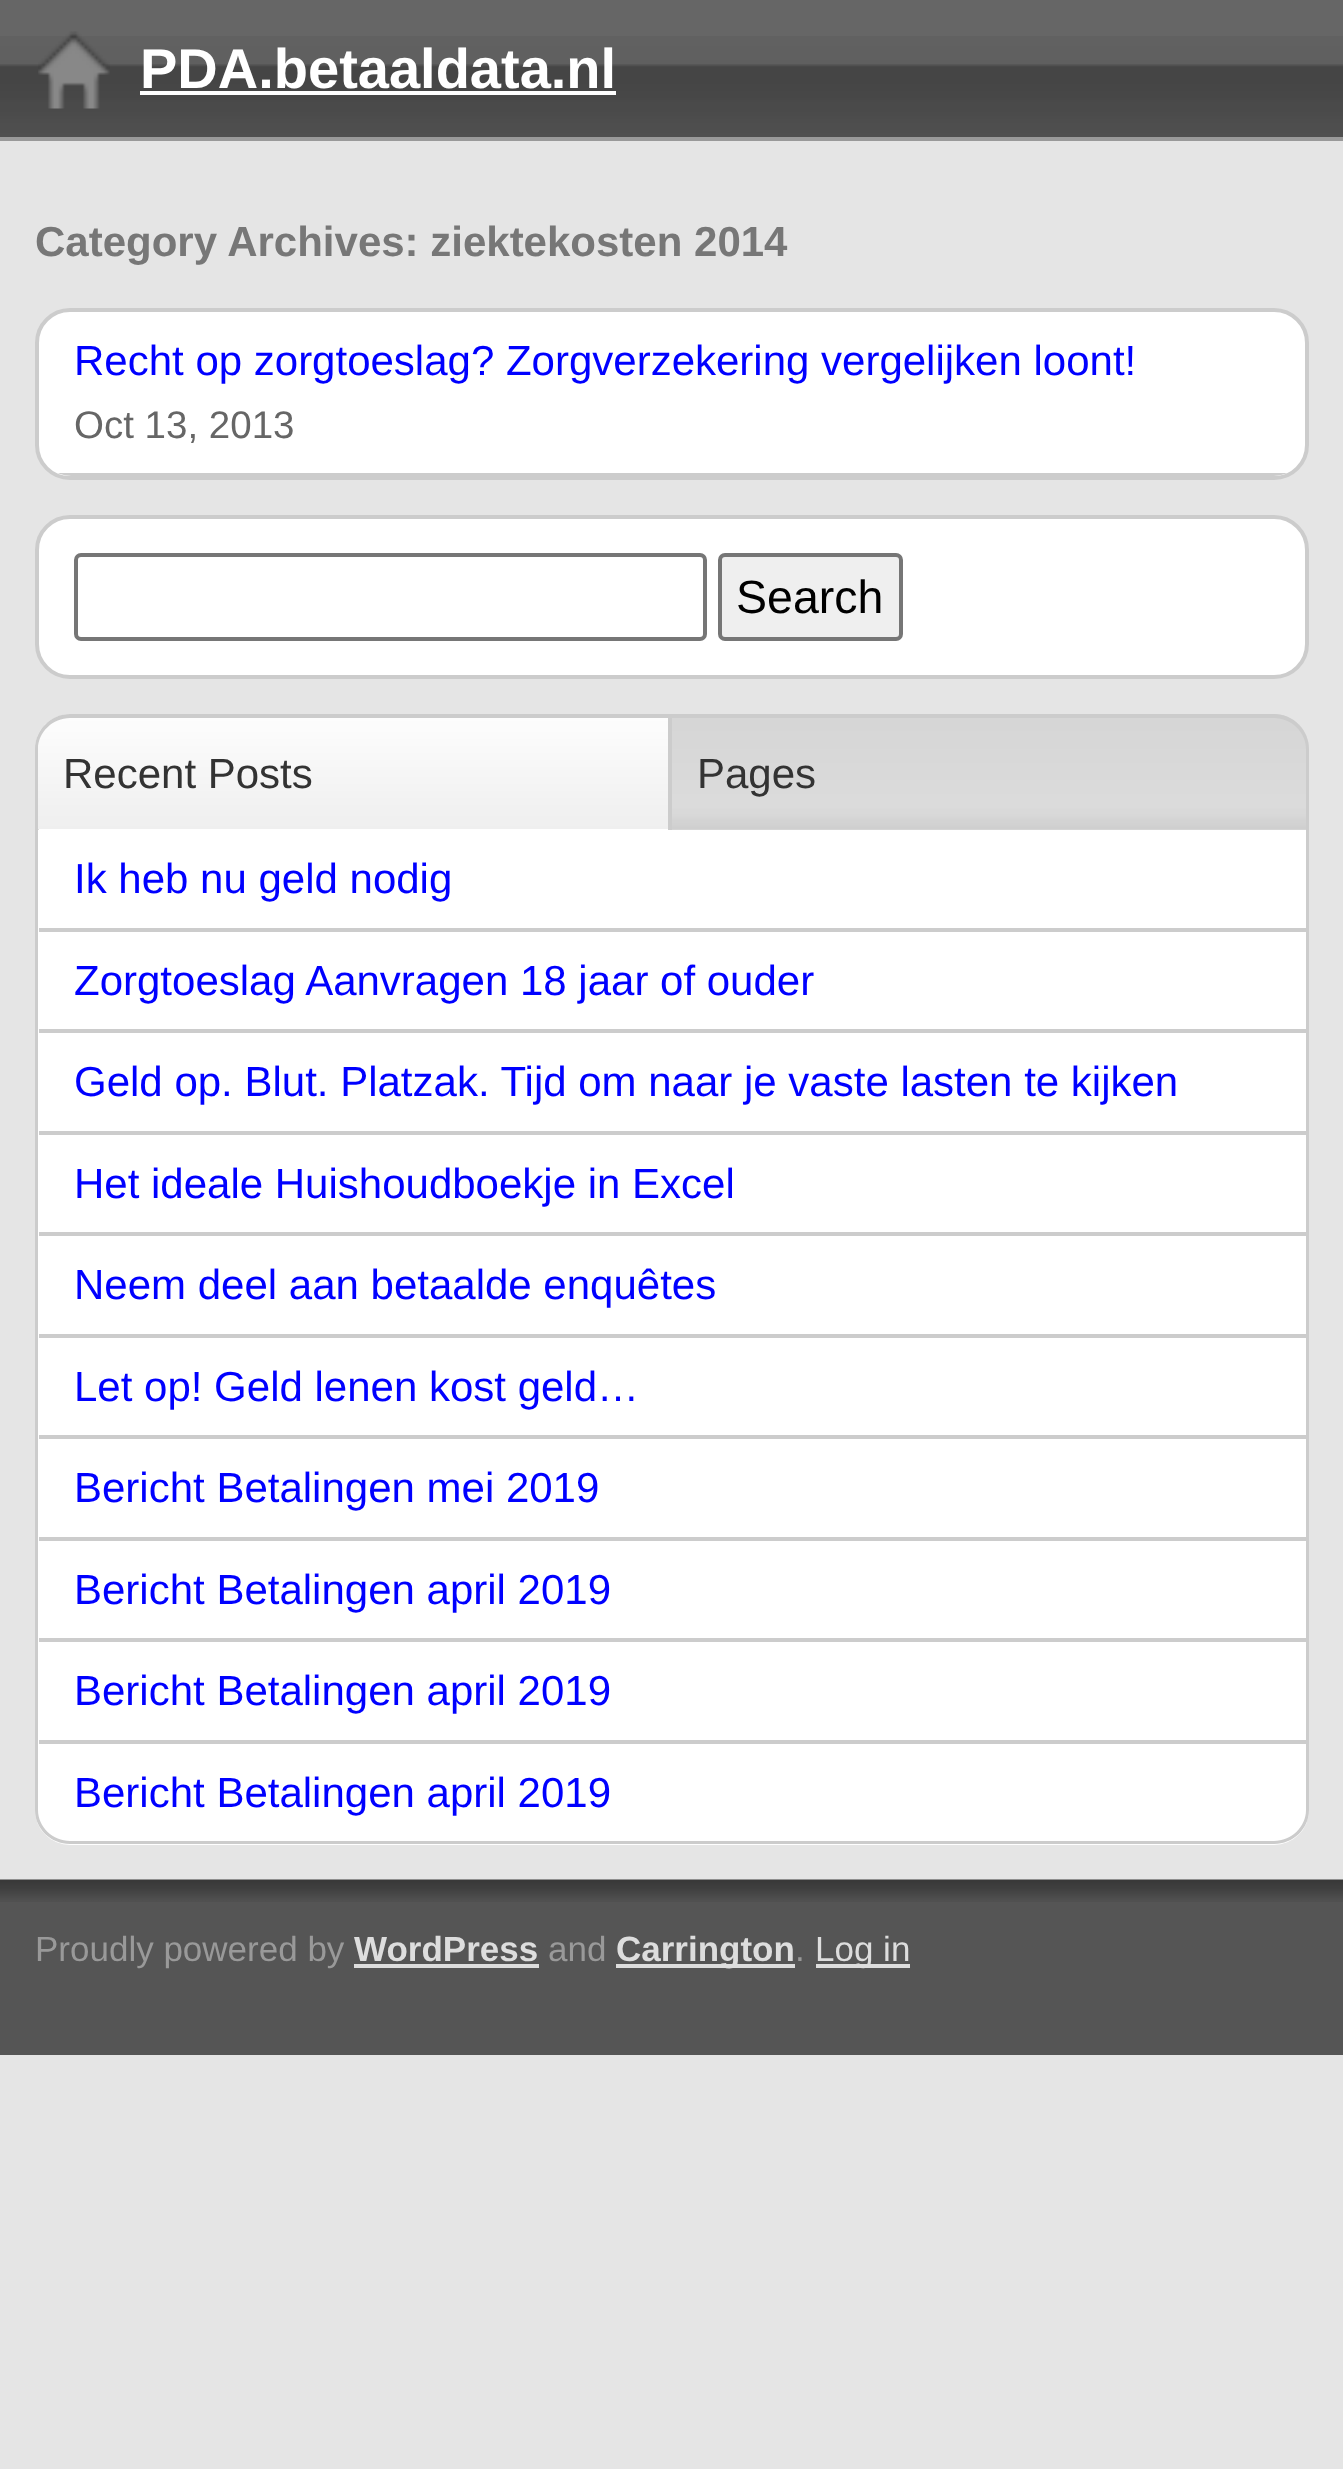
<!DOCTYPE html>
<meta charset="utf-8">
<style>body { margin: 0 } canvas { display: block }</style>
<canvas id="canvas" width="1343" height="2469"></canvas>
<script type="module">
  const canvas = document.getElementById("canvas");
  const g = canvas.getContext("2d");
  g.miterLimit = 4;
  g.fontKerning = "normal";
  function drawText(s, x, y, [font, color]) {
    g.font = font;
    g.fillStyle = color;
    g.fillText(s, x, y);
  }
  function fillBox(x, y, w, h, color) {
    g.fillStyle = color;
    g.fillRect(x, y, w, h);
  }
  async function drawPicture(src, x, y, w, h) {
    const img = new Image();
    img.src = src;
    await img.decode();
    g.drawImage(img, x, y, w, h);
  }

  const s1 = ["bold 56px Liberation Sans", "#FFFFFF"];
  const s2 = ["bold 42px Liberation Sans", "#777777"];
  const s3 = ["42px Liberation Sans", "#0000FF"];
  const s4 = ["38.5px Liberation Sans", "#666666"];
  const s5 = ["46.5px Liberation Sans", "#000000"];
  const s6 = ["42px Liberation Sans", "#333333"];
  const s7 = ["35px Liberation Sans", "#999999"];
  const s8 = ["bold 35px Liberation Sans", "#DDDDDD"];
  const s9 = ["35px Liberation Sans", "#DDDDDD"];

  fillBox(0, 0, 1343, 2469, "#E5E5E5");
  fillBox(0, 0, 1343, 36, "#666666");
  await drawPicture("pic1.png", 0, 36, 1343, 101);
  fillBox(0, 137, 1343, 4, "#999999");
  await drawPicture("pic2.png", 38, 31, 72, 78);
  drawText("PDA.betaaldata.nl", 140, 88, s1);
  fillBox(140, 91, 476, 4, "#FFFFFF");
  drawText("Category Archives: ziektekosten 2014", 35, 256, s2);
  g.fillStyle = "#FFFFFF";
  g.beginPath();
  g.roundRect(37, 310, 1270, 168, 33);
  g.fill();
  g.strokeStyle = "#CCCCCC";
  g.lineWidth = 4;
  g.stroke();
  g.save();
  g.beginPath();
  g.roundRect(39, 312, 1267, 164, 32);
  g.clip();
  fillBox(57, 473, 1231, 3, "#CCCCCC");
  g.restore();
  drawText("Recht op zorgtoeslag? Zorgverzekering vergelijken loont!", 74, 375, s3);
  drawText("Oct 13, 2013", 74, 438, s4);
  g.fillStyle = "#FFFFFF";
  g.beginPath();
  g.roundRect(37, 517, 1270, 160, 33);
  g.fill();
  g.stroke();
  g.beginPath();
  g.roundRect(76, 555, 629, 84, 5);
  g.strokeStyle = "#767676";
  g.stroke();
  g.fillStyle = "#EFEFEF";
  g.beginPath();
  g.roundRect(720, 555, 181, 84, 5);
  g.fill();
  g.stroke();
  drawText("Search", 736, 613, s5);
  fillBox(35, 829, 4, 1, "#DDDDDD");
  g.fillStyle = "#FFFFFF";
  g.beginPath();
  g.roundRect(39, 718, 630, 112, [32, 0, 0, 0]);
  g.fill();
  await drawPicture("pic3.png", 35, 714, 633, 115);
  g.fillStyle = "#CCCCCC";
  g.beginPath();
  g.moveTo(70, 714);
  g.lineTo(672, 714);
  g.lineTo(672, 830);
  g.lineTo(35, 830);
  g.lineTo(35, 749);
  g.bezierCurveTo(35, 730, 51, 714, 70, 714);
  g.closePath();
  g.moveTo(70, 718);
  g.lineTo(668, 718);
  g.lineTo(668, 830);
  g.lineTo(38, 830);
  g.lineTo(38, 749);
  g.bezierCurveTo(38, 732, 53, 718, 70, 718);
  g.closePath();
  g.fill("evenodd");
  drawText("Recent Posts", 63, 788, s6);
  g.fillStyle = "#D5D5D5";
  g.beginPath();
  g.roundRect(672, 718, 634, 112, [0, 32, 0, 0]);
  g.fill();
  await drawPicture("pic4.png", 672, 714, 637, 115);
  g.fillStyle = "#CCCCCC";
  g.beginPath();
  g.moveTo(672, 714);
  g.lineTo(1274, 714);
  g.bezierCurveTo(1293, 714, 1309, 730, 1309, 749);
  g.lineTo(1309, 830);
  g.lineTo(672, 830);
  g.closePath();
  g.moveTo(672, 718);
  g.lineTo(1274, 718);
  g.bezierCurveTo(1291, 718, 1306, 732, 1306, 749);
  g.lineTo(1306, 830);
  g.lineTo(672, 830);
  g.closePath();
  g.fill("evenodd");
  drawText("Pages", 697, 788, s6);
  g.fillStyle = "#FFFFFF";
  g.beginPath();
  g.roundRect(35, 830, 1274, 1015, [0, 0, 35, 35]);
  g.fill();
  g.fillStyle = "#CCCCCC";
  g.beginPath();
  g.moveTo(35, 830);
  g.lineTo(1309, 830);
  g.lineTo(1309, 1810);
  g.bezierCurveTo(1309, 1829, 1293, 1844, 1274, 1844);
  g.lineTo(70, 1844);
  g.bezierCurveTo(51, 1844, 35, 1829, 35, 1810);
  g.closePath();
  g.moveTo(38, 830);
  g.lineTo(1306, 830);
  g.lineTo(1306, 1810);
  g.bezierCurveTo(1306, 1827, 1291, 1841, 1274, 1841);
  g.lineTo(70, 1841);
  g.bezierCurveTo(53, 1841, 38, 1827, 38, 1810);
  g.closePath();
  g.fill("evenodd");
  fillBox(39, 928, 1267, 4, "#CCCCCC");
  drawText("Ik heb nu geld nodig", 74, 893, s3);
  fillBox(39, 1029, 1267, 4, "#CCCCCC");
  drawText("Zorgtoeslag Aanvragen 18 jaar of ouder", 74, 995, s3);
  fillBox(39, 1131, 1267, 4, "#CCCCCC");
  drawText("Geld op. Blut. Platzak. Tijd om naar je vaste lasten te kijken", 74, 1096, s3);
  fillBox(39, 1232, 1267, 4, "#CCCCCC");
  drawText("Het ideale Huishoudboekje in Excel", 74, 1198, s3);
  fillBox(39, 1334, 1267, 4, "#CCCCCC");
  drawText("Neem deel aan betaalde enquêtes", 74, 1299, s3);
  fillBox(39, 1435, 1267, 4, "#CCCCCC");
  drawText("Let op! Geld lenen kost geld…", 74, 1401, s3);
  fillBox(39, 1537, 1267, 4, "#CCCCCC");
  drawText("Bericht Betalingen mei 2019", 74, 1502, s3);
  fillBox(39, 1638, 1267, 4, "#CCCCCC");
  drawText("Bericht Betalingen april 2019", 74, 1604, s3);
  fillBox(39, 1740, 1267, 4, "#CCCCCC");
  drawText("Bericht Betalingen april 2019", 74, 1705, s3);
  drawText("Bericht Betalingen april 2019", 74, 1807, s3);
  fillBox(0, 1902, 1343, 153, "#555555");
  await drawPicture("pic5.png", 0, 1879, 1343, 23);
  drawText("Proudly powered by", 35, 1961, s7);
  drawText("WordPress", 354, 1961, s8);
  fillBox(354, 1964, 185, 4, "#DDDDDD");
  drawText("and", 548, 1961, s7);
  fillBox(616, 1964, 179, 4, "#DDDDDD");
  drawText("Carrington", 616, 1961, s8);
  drawText(".", 795, 1961, s7);
  fillBox(816, 1964, 94, 4, "#DDDDDD");
  drawText("Log in", 815, 1961, s9);
</script>
